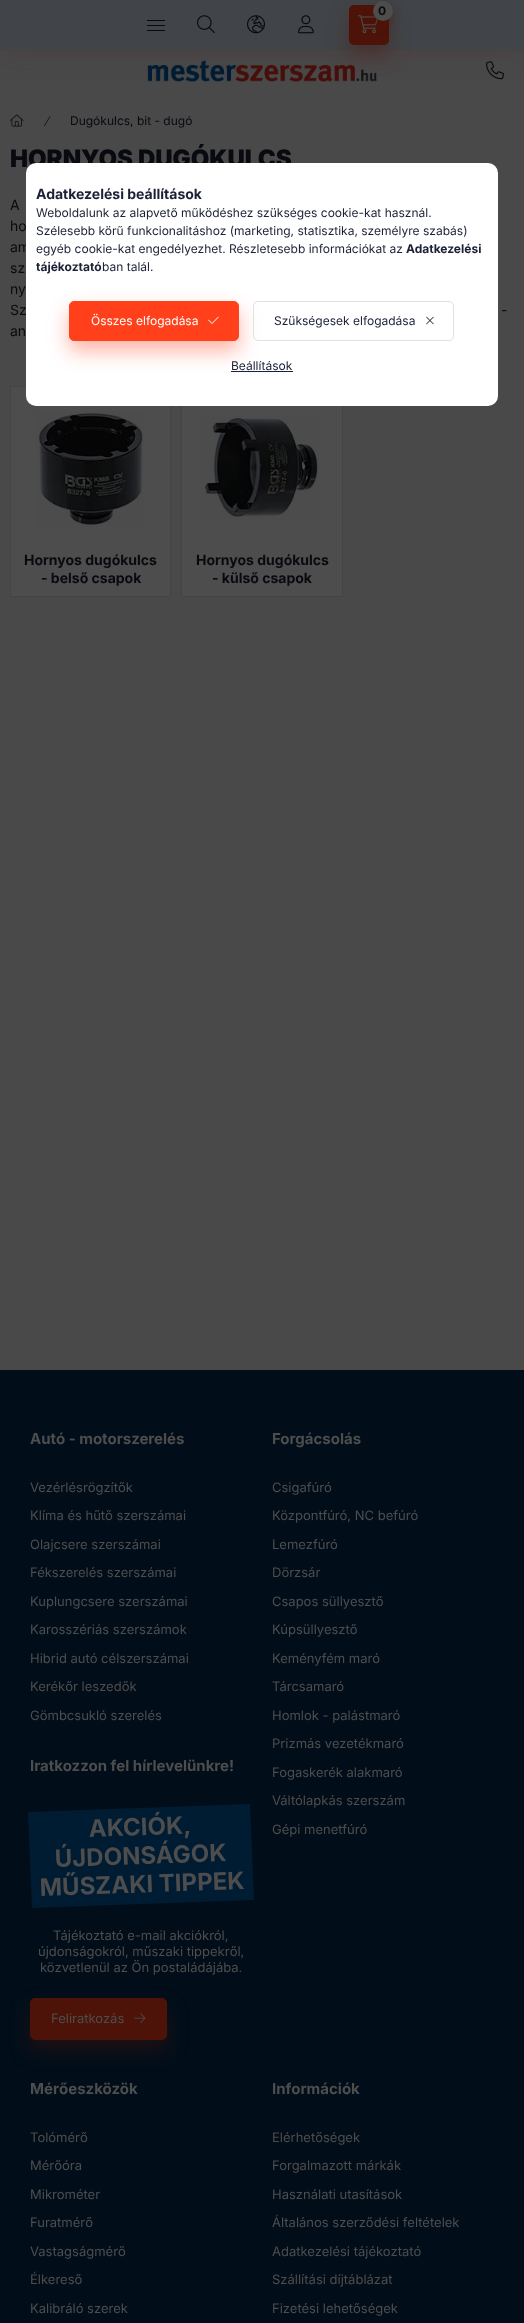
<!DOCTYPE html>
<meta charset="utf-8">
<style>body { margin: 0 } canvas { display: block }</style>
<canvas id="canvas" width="524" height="2323"></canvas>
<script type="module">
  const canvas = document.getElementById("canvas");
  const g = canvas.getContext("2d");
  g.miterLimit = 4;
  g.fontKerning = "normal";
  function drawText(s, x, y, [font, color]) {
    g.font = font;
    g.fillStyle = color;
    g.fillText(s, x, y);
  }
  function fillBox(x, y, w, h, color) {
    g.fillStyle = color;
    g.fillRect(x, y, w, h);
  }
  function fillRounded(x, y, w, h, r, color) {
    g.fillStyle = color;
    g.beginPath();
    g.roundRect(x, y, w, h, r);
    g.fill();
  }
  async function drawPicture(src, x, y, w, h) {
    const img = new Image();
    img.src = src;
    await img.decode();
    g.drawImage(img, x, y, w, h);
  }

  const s1 = ["bold 12px Inter", "#080A10"];
  const s2 = ["12px Inter", "#080A10"];
  const s3 = ["900 24px Inter", "#080A10"];
  const s4 = ["14px Inter", "#080A10"];
  const s5 = ["bold 14px Inter", "#080A10"];
  const s6 = ["bold 15px Inter", "#4D4D4D"];
  const s7 = ["13px Inter", "#4D4D4D"];
  const s8 = ["bold 14px Inter", "#1B2036"];
  const s9 = ["12px Inter", "#1B2036"];
  const s10 = ["bold 12px Inter", "#1B2036"];
  const s11 = ["12px Inter", "#FFFFFF"];

  fillBox(0, 0, 524, 2323, "#49494A");
  await drawPicture("pic5.png", 147, 60, 230, 22);
  await drawPicture("pic6.png", 486, 61, 18, 19);
  g.fillStyle = "rgba(77, 19, 8, 0.2)";
  g.filter = "blur(15px)";
  g.beginPath();
  g.rect(0, 0, 524, 50);
  g.fill();
  g.filter = "none";
  fillBox(0, 0, 524, 50, "#414448");
  g.fillStyle = "rgba(77, 19, 8, 0.4)";
  g.filter = "blur(10px)";
  g.beginPath();
  g.roundRect(349, 15, 40, 40, 5);
  g.fill();
  g.filter = "none";
  fillRounded(349, 5, 40, 40, 5, "#4D1308");
  await drawPicture("pic1.png", 358, 15, 20, 19);
  g.fillStyle = "rgba(77, 19, 8, 0.4)";
  g.filter = "blur(5px)";
  g.beginPath();
  g.roundRect(373, 6, 20, 20, 10);
  g.fill();
  g.filter = "none";
  g.fillStyle = "#4D4D4D";
  g.beginPath();
  g.arc(383, 11, 10, 0, Math.PI * 2);
  g.fill();
  drawText("0", 378, 15, s1);
  fillBox(147, 20, 18, 1, "#080A10");
  fillBox(147, 25, 18, 1, "#080A10");
  fillBox(147, 30, 18, 1, "#080A10");
  await drawPicture("pic2.png", 197, 15, 18, 19);
  await drawPicture("pic3.png", 247, 15, 18, 19);
  await drawPicture("pic4.png", 298, 15, 16, 19);
  await drawPicture("pic7.png", 10, 114, 14, 13);
  await drawPicture("pic8.png", 44, 116, 7, 11);
  drawText("Dugókulcs, bit - dugó", 70, 125, s2);
  drawText("HORNYOS DUGÓKULCS", 10, 167, s3);
  drawText("A", 10, 210, s4);
  drawText("ho", 10, 231, s4);
  drawText("am", 10, 252, s4);
  drawText("sz", 10, 273, s4);
  drawText("ny", 10, 294, s4);
  drawText("Sz", 10, 315, s4);
  drawText("-", 501, 315, s4);
  drawText("an", 10, 336, s4);
  g.fillStyle = "#4D4D4D";
  g.beginPath();
  g.rect(10.5, 386.5, 160, 210);
  g.fill();
  g.strokeStyle = "#414448";
  g.stroke();
  await drawPicture("pic9.png", 36, 412, 109, 115);
  drawText("Hornyos dugókulcs", 24, 565, s5);
  drawText("- belső csapok", 41, 583, s5);
  fillBox(182, 406, 160, 190, "#4D4D4D");
  g.strokeRect(181.5, 386.5, 161, 210);
  await drawPicture("pic10.png", 201, 416, 118, 104);
  drawText("Hornyos dugókulcs", 196, 565, s5);
  drawText("- külső csapok", 212, 583, s5);
  fillBox(0, 1370, 524, 953, "#010E1A");
  drawText("Autó - motorszerelés", 30, 1444, s6);
  drawText("Vezérlésrögzítők", 30, 1492, s7);
  drawText("Klíma és hűtő szerszámai", 30, 1520, s7);
  drawText("Olajcsere szerszámai", 30, 1549, s7);
  drawText("Fékszerelés szerszámai", 30, 1577, s7);
  drawText("Kuplungcsere szerszámai", 30, 1606, s7);
  drawText("Karosszériás szerszámok", 30, 1634, s7);
  drawText("Hibrid autó célszerszámai", 30, 1663, s7);
  drawText("Kerékőr leszedők", 30, 1691, s7);
  drawText("Gömbcsukló szerelés", 30, 1720, s7);
  drawText("Iratkozzon fel hírlevelünkre!", 30, 1771, s6);
  g.fillStyle = "#001C33";
  g.beginPath();
  g.moveTo(28, 1812);
  g.lineTo(250, 1804);
  g.lineTo(254, 1900);
  g.lineTo(32, 1908);
  g.closePath();
  g.fill();
  g.font = "bold 24px Inter";
  g.fillStyle = "#4D4D4D";
  g.save();
  g.translate(89, 1837);
  g.rotate(-2 * Math.PI / 180);
  g.fillText("AKCIÓK,", 0, 0);
  g.restore();
  g.save();
  g.translate(55, 1867);
  g.rotate(-2 * Math.PI / 180);
  g.fillText("ÚJDONSÁGOK", 0, 0);
  g.restore();
  g.save();
  g.translate(40, 1896);
  g.rotate(-2 * Math.PI / 180);
  g.fillText("MŰSZAKI TIPPEK", 0, 0);
  g.restore();
  drawText("Tájékoztató e-mail akciókról,", 53, 1940, s7);
  drawText("újdonságokról, műszaki tippekről,", 38, 1956, s7);
  drawText("közvetlenül az Ön postaládájába.", 40, 1972, s7);
  g.fillStyle = "rgba(77, 19, 8, 0.4)";
  g.filter = "blur(10px)";
  g.beginPath();
  g.roundRect(30, 2008, 137, 42, 5);
  g.fill();
  g.filter = "none";
  g.fillStyle = "#4D1308";
  g.beginPath();
  g.roundRect(30.5, 1998.5, 136, 41, 4.5);
  g.fill();
  g.strokeStyle = "#4D1308";
  g.stroke();
  drawText("Feliratkozás", 51, 2023, s7);
  await drawPicture("pic11.png", 134, 2013, 12, 10);
  drawText("Forgácsolás", 272, 1444, s6);
  drawText("Csigafúró", 272, 1492, s7);
  drawText("Központfúró, NC befúró", 272, 1520, s7);
  drawText("Lemezfúró", 272, 1549, s7);
  drawText("Dörzsár", 272, 1577, s7);
  drawText("Csapos süllyesztő", 272, 1606, s7);
  drawText("Kúpsüllyesztő", 272, 1634, s7);
  drawText("Keményfém maró", 272, 1663, s7);
  drawText("Tárcsamaró", 272, 1691, s7);
  drawText("Homlok - palástmaró", 272, 1720, s7);
  drawText("Prizmás vezetékmaró", 272, 1748, s7);
  drawText("Fogaskerék alakmaró", 272, 1777, s7);
  drawText("Váltólapkás szerszám", 272, 1805, s7);
  drawText("Gépi menetfúró", 272, 1834, s7);
  drawText("Mérőeszközök", 30, 2094, s6);
  drawText("Tolómérő", 30, 2142, s7);
  drawText("Mérőóra", 30, 2170, s7);
  drawText("Mikrométer", 30, 2199, s7);
  drawText("Furatmérő", 30, 2227, s7);
  drawText("Vastagságmérő", 30, 2256, s7);
  drawText("Élkereső", 30, 2284, s7);
  drawText("Kalibráló szerek", 30, 2313, s7);
  drawText("Információk", 272, 2094, s6);
  drawText("Elérhetőségek", 272, 2142, s7);
  drawText("Forgalmazott márkák", 272, 2170, s7);
  drawText("Használati utasítások", 272, 2199, s7);
  drawText("Általános szerződési feltételek", 272, 2227, s7);
  drawText("Adatkezelési tájékoztató", 272, 2256, s7);
  drawText("Szállítási díjtáblázat", 272, 2284, s7);
  drawText("Fizetési lehetőségek", 272, 2313, s7);
  fillRounded(26, 163, 472, 243, 10, "#FFFFFF");
  drawText("Adatkezelési beállítások", 36, 199, s8);
  drawText("Weboldalunk az alapvető működéshez szükséges cookie-kat használ.", 36, 217, s9);
  drawText("Szélesebb körű funkcionalitáshoz (marketing, statisztika, személyre szabás)", 36, 235, s9);
  drawText("egyéb cookie-kat engedélyezhet. Részletesebb információkat az", 36, 253, s9);
  drawText("Adatkezelési", 406, 253, s10);
  drawText("tájékoztató", 36, 271, s10);
  drawText("ban talál.", 102, 271, s9);
  g.fillStyle = "rgba(255, 64, 27, 0.4)";
  g.filter = "blur(10px)";
  g.beginPath();
  g.roundRect(69, 311, 170, 40, 5);
  g.fill();
  g.filter = "none";
  g.fillStyle = "#FF401B";
  g.beginPath();
  g.roundRect(69.5, 301.5, 169, 39, 4.5);
  g.fill();
  g.strokeStyle = "#FF401B";
  g.stroke();
  drawText("Összes elfogadása", 91, 325, s11);
  await drawPicture("pic12.png", 208, 316, 11, 8);
  g.beginPath();
  g.roundRect(253.5, 301.5, 200, 39, 4.5);
  g.strokeStyle = "#E1E1E1";
  g.stroke();
  drawText("Szükségesek elfogadása", 274, 325, s9);
  await drawPicture("pic13.png", 426, 316, 8, 9);
  drawText("Beállítások", 231, 370, s9);
  fillBox(231, 371, 62, 1, "#1B2036");
</script>
